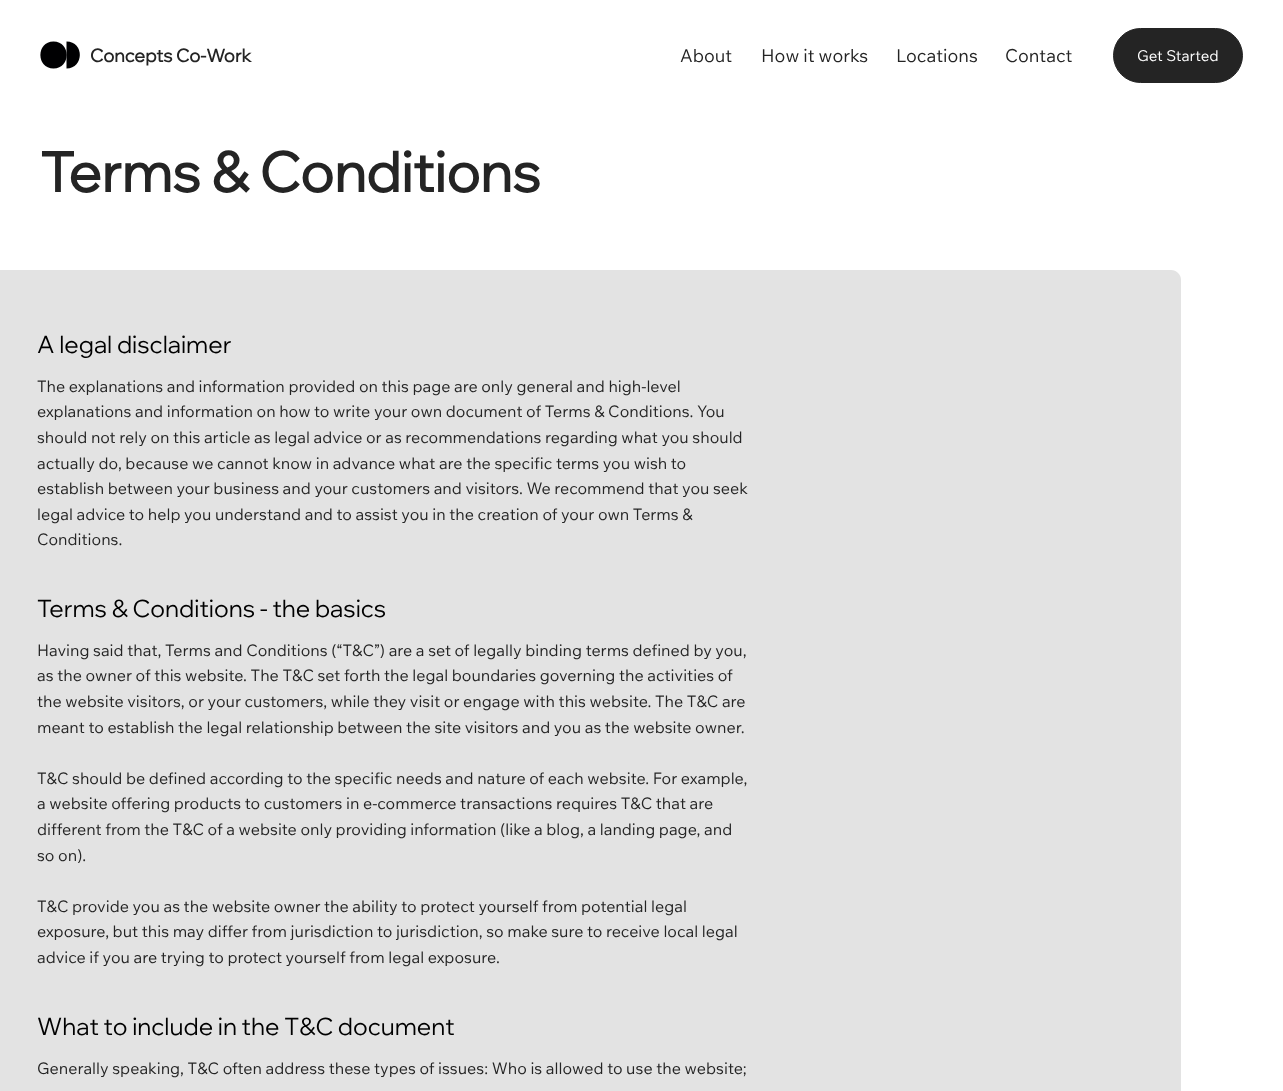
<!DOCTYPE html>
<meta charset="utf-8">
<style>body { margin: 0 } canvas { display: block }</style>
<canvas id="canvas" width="1283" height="1091"></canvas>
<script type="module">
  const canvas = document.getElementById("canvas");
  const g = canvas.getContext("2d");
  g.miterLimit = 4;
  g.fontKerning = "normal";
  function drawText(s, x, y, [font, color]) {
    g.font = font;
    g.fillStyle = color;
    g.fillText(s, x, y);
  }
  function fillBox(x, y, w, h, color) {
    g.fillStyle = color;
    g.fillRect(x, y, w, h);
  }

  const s1 = ["bold 18px Wix Madefor Display", "#242424"];
  const s2 = ["18px Wix Madefor Text", "#242424"];
  const s3 = ["15px Wix Madefor Text", "#FFFFFF"];
  const s4 = ["bold 55.1px Wix Madefor Display", "#242424"];
  const s5 = ["24px Wix Madefor Display", "#000000"];
  const s6 = ["16px Wix Madefor Text", "#242424"];

  fillBox(0, 0, 1283, 1091, "#FFFFFF");
  g.fillStyle = "#000002";
  g.beginPath();
  g.moveTo(53.5, 41.5);
  g.bezierCurveTo(71, 41.5, 71, 68.5, 53.5, 68.5);
  g.bezierCurveTo(36, 68.5, 36, 41.5, 53.5, 41.5);
  g.closePath();
  g.fill();
  g.beginPath();
  g.moveTo(66.5, 55);
  g.lineTo(66.5, 41.5);
  g.bezierCurveTo(84.5, 41.5, 84, 68.5, 66.5, 68.5);
  g.closePath();
  g.fill();
  drawText("Concepts Co-Work", 90, 62, s1);
  drawText("About", 680, 62, s2);
  drawText("How it works", 761, 62, s2);
  drawText("Locations", 896, 62, s2);
  drawText("Contact", 1005, 62, s2);
  g.beginPath();
  g.roundRect(1113.5, 28.5, 129, 54, 27);
  g.fill();
  g.strokeStyle = "#242424";
  g.stroke();
  drawText("Get Started", 1137, 61, s3);
  drawText("Terms & Conditions", 40, 192, s4);
  g.fillStyle = "#E3E3E3";
  g.beginPath();
  g.moveTo(0, 270);
  g.lineTo(1171, 270);
  g.bezierCurveTo(1176.5, 270, 1181, 274.5, 1181, 280);
  g.lineTo(1181, 1091);
  g.bezierCurveTo(1181, 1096.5, 1176.5, 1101, 1171, 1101);
  g.lineTo(0, 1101);
  g.closePath();
  g.fill();
  drawText("A legal disclaimer", 37, 353, s5);
  drawText("The explanations and information provided on this page are only general and high-level", 37, 392, s6);
  drawText("explanations and information on how to write your own document of Terms & Conditions. You", 37, 417, s6);
  drawText("should not rely on this article as legal advice or as recommendations regarding what you should", 37, 443, s6);
  drawText("actually do, because we cannot know in advance what are the specific terms you wish to", 37, 469, s6);
  drawText("establish between your business and your customers and visitors. We recommend that you seek", 37, 494, s6);
  drawText("legal advice to help you understand and to assist you in the creation of your own Terms &", 37, 520, s6);
  drawText("Conditions.", 37, 545, s6);
  drawText("Terms & Conditions - the basics", 37, 617, s5);
  drawText("Having said that, Terms and Conditions (“T&C”) are a set of legally binding terms defined by you,", 37, 656, s6);
  drawText("as the owner of this website. The T&C set forth the legal boundaries governing the activities of", 37, 681, s6);
  drawText("the website visitors, or your customers, while they visit or engage with this website. The T&C are", 37, 707, s6);
  drawText("meant to establish the legal relationship between the site visitors and you as the website owner.", 37, 733, s6);
  drawText("T&C should be defined according to the specific needs and nature of each website. For example,", 37, 784, s6);
  drawText("a website offering products to customers in e-commerce transactions requires T&C that are", 37, 809, s6);
  drawText("different from the T&C of a website only providing information (like a blog, a landing page, and", 37, 835, s6);
  drawText("so on).", 37, 861, s6);
  drawText("T&C provide you as the website owner the ability to protect yourself from potential legal", 37, 912, s6);
  drawText("exposure, but this may differ from jurisdiction to jurisdiction, so make sure to receive local legal", 37, 937, s6);
  drawText("advice if you are trying to protect yourself from legal exposure.", 37, 963, s6);
  drawText("What to include in the T&C document", 37, 1035, s5);
  drawText("Generally speaking, T&C often address these types of issues: Who is allowed to use the website;", 37, 1074, s6);
</script>
